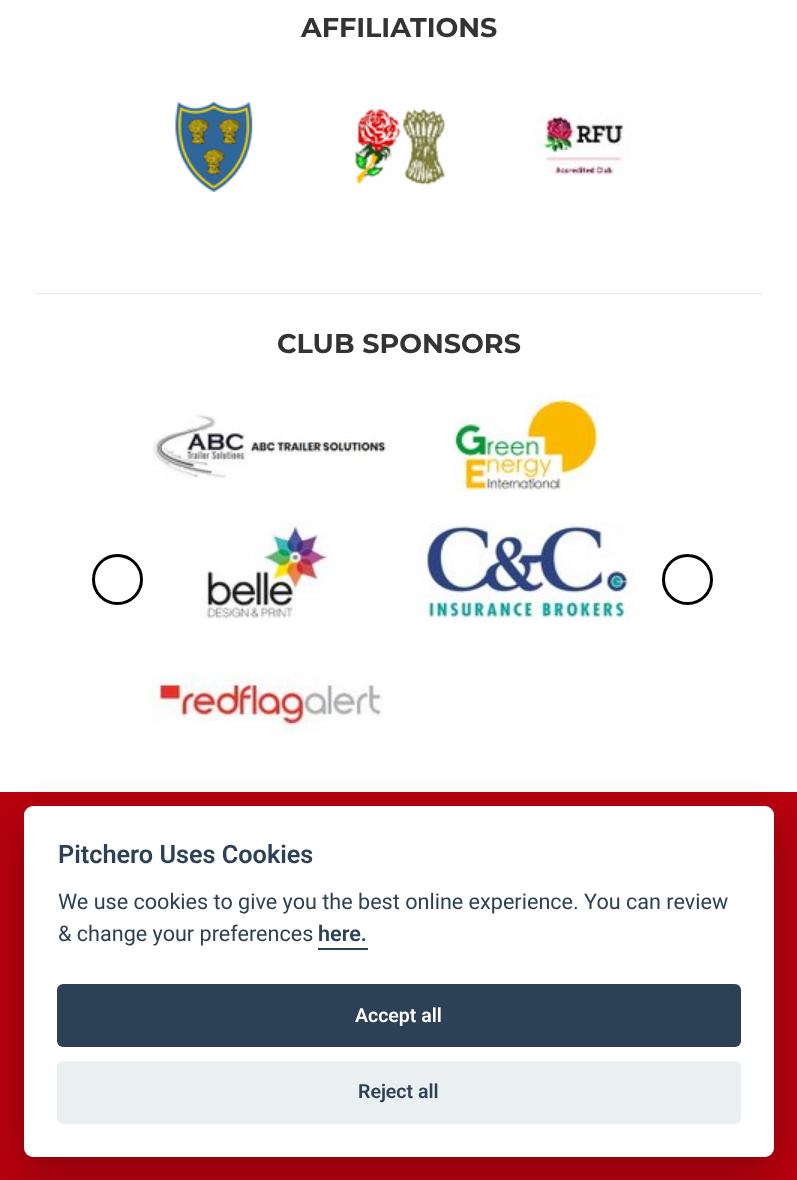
<!DOCTYPE html>
<meta charset="utf-8">
<style>body { margin: 0 } canvas { display: block }</style>
<canvas id="canvas" width="797" height="1180"></canvas>
<script type="module">
  const canvas = document.getElementById("canvas");
  const g = canvas.getContext("2d");
  g.miterLimit = 4;
  g.fontKerning = "normal";
  function drawText(s, x, y, [font, color]) {
    g.font = font;
    g.fillStyle = color;
    g.fillText(s, x, y);
  }
  function fillBox(x, y, w, h, color) {
    g.fillStyle = color;
    g.fillRect(x, y, w, h);
  }
  function fillRounded(x, y, w, h, r, color) {
    g.fillStyle = color;
    g.beginPath();
    g.roundRect(x, y, w, h, r);
    g.fill();
  }
  async function drawPicture(src, x, y, w, h) {
    const img = new Image();
    img.src = src;
    await img.decode();
    g.drawImage(img, x, y, w, h);
  }

  const s1 = ["bold 27px Montserrat", "#333333"];
  const s2 = ["600 25.25px Roboto", "#2D4156"];
  const s3 = ["21.6px Roboto", "#2D4156"];
  const s4 = ["600 21.6px Roboto", "#2D4156"];
  const s5 = ["600 19.5px Roboto", "#FFFFFF"];
  const s6 = ["600 19.5px Roboto", "#2D4156"];

  fillBox(0, 0, 797, 1180, "#FFFFFF");
  drawText("AFFILIATIONS", 301, 37, s1);
  await drawPicture("pic1.png", 175, 102, 78, 90);
  await drawPicture("pic2.png", 355, 108, 91, 78);
  await drawPicture("pic3.png", 533, 102, 97, 73);
  fillBox(36, 293, 726, 1, "#E7E7E7");
  drawText("CLUB SPONSORS", 277, 353, s1);
  g.beginPath();
  g.arc(117.5, 579.5, 24, 0, Math.PI * 2);
  g.strokeStyle = "#000000";
  g.lineWidth = 3;
  g.stroke();
  await drawPicture("pic4.png", 151, 414, 241, 65);
  await drawPicture("pic5.png", 453, 394, 147, 98);
  await drawPicture("pic6.png", 200, 522, 132, 97);
  await drawPicture("pic7.png", 413, 522, 224, 98);
  await drawPicture("pic8.png", 151, 673, 232, 61);
  g.beginPath();
  g.arc(687.5, 579.5, 24, 0, Math.PI * 2);
  g.stroke();
  fillBox(0, 792, 797, 388, "#B9000F");
  g.fillStyle = "rgba(2, 2, 3, 0.28)";
  g.filter = "blur(22.5px)";
  g.beginPath();
  g.roundRect(24, 821, 750, 351, 9);
  g.fill();
  g.filter = "none";
  fillRounded(24, 806, 750, 351, 9, "#FFFFFF");
  drawText("Pitchero Uses Cookies", 58, 863, s2);
  drawText("We use cookies to give you the best online experience. You can review", 58, 909, s3);
  drawText("& change your preferences", 58, 941, s3);
  drawText("here.", 318, 941, s4);
  fillBox(318, 948, 50, 2, "#2D4156");
  fillRounded(57, 984, 684, 63, 6, "#2D4156");
  drawText("Accept all", 355, 1022, s5);
  fillRounded(57, 1061, 684, 63, 6, "#EAEFF2");
  drawText("Reject all", 358, 1098, s6);
</script>
